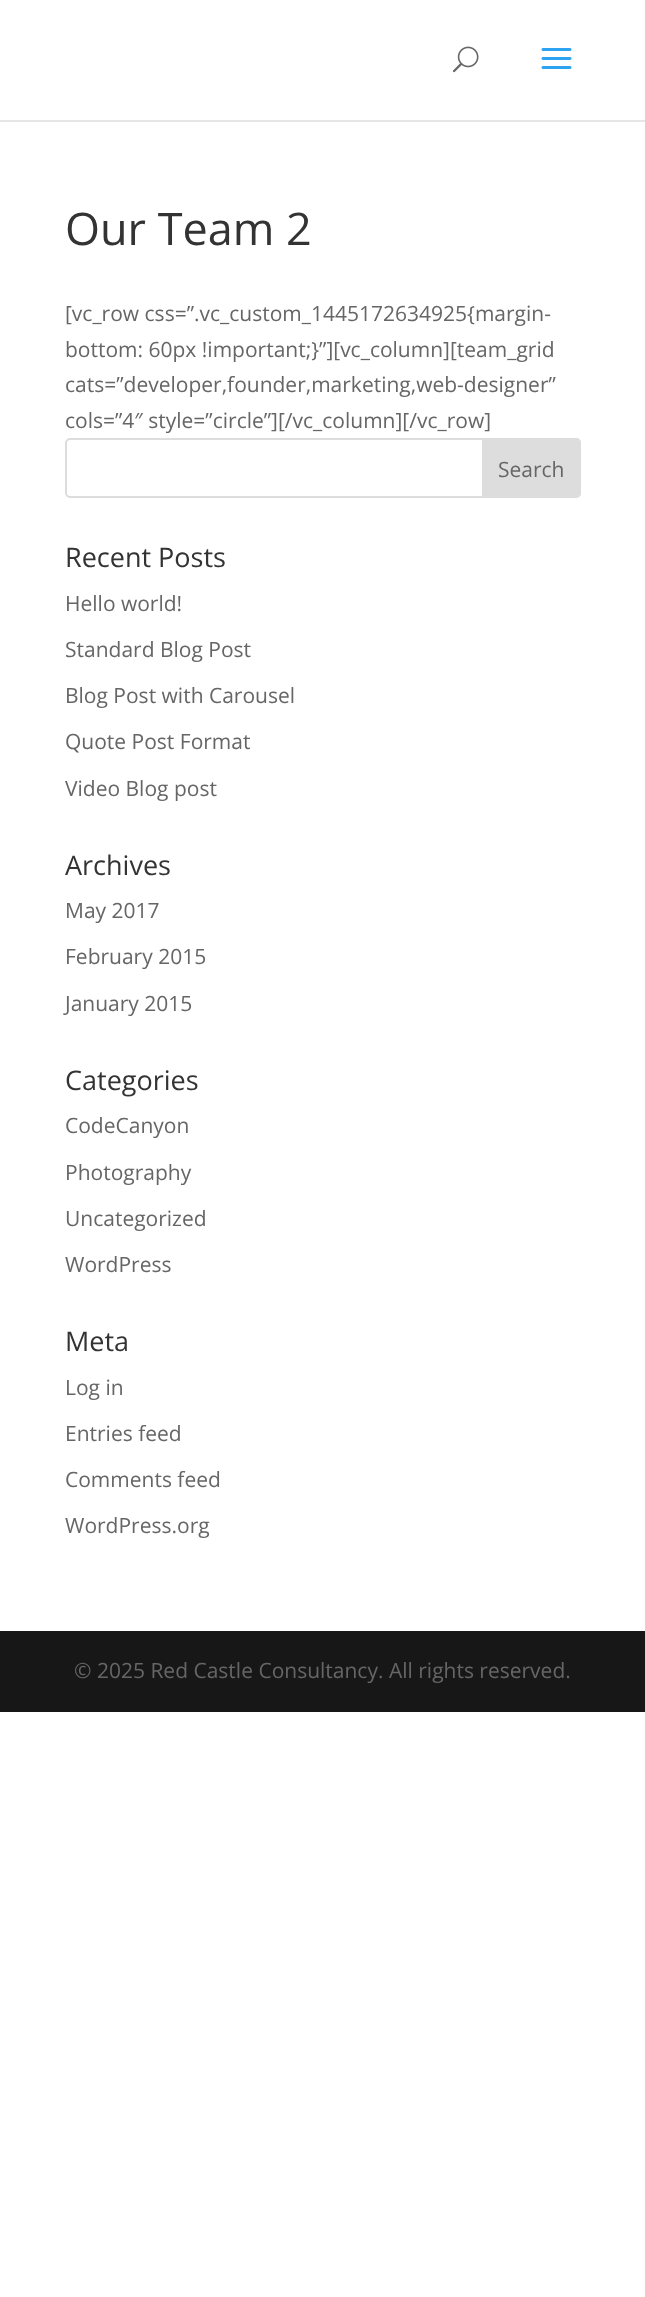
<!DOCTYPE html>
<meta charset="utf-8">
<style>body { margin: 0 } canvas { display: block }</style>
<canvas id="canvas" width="645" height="2297"></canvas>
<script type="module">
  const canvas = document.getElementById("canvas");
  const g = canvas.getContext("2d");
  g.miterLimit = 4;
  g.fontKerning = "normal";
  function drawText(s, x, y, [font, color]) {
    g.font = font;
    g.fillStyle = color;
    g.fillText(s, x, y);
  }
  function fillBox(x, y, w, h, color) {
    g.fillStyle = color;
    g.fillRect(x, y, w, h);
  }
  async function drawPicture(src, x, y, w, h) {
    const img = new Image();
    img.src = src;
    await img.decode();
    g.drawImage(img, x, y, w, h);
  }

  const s1 = ["45px Open Sans", "#333333"];
  const s2 = ["21px Open Sans", "#666666"];
  const s3 = ["27px Open Sans", "#333333"];

  fillBox(0, 0, 645, 2297, "#FFFFFF");
  fillBox(0, 120, 645, 2, "#E6E6E6");
  await drawPicture("pic1.png", 452, 46, 27, 27);
  await drawPicture("pic2.png", 541, 48, 31, 21);
  drawText("Our Team 2", 65, 245, s1);
  drawText("[vc_row css=”.vc_custom_1445172634925{margin-", 65, 321, s2);
  drawText("bottom: 60px !important;}”][vc_column][team_grid", 65, 357, s2);
  drawText("cats=”developer,founder,marketing,web-designer”", 65, 392, s2);
  drawText("cols=”4″ style=”circle”][/vc_column][/vc_row]", 65, 428, s2);
  g.beginPath();
  g.roundRect(66, 439, 514, 58, 4);
  g.strokeStyle = "#DDDDDD";
  g.lineWidth = 2;
  g.stroke();
  g.fillStyle = "#DDDDDD";
  g.beginPath();
  g.roundRect(483, 439, 97, 58, [0, 4, 4, 0]);
  g.fill();
  g.stroke();
  drawText("Search", 498, 477, s2);
  drawText("Recent Posts", 65, 567, s3);
  drawText("Hello world!", 65, 611, s2);
  drawText("Standard Blog Post", 65, 657, s2);
  drawText("Blog Post with Carousel", 65, 703, s2);
  drawText("Quote Post Format", 65, 749, s2);
  drawText("Video Blog post", 65, 796, s2);
  drawText("Archives", 65, 875, s3);
  drawText("May 2017", 65, 918, s2);
  drawText("February 2015", 65, 964, s2);
  drawText("January 2015", 65, 1011, s2);
  drawText("Categories", 65, 1090, s3);
  drawText("CodeCanyon", 65, 1133, s2);
  drawText("Photography", 65, 1180, s2);
  drawText("Uncategorized", 65, 1226, s2);
  drawText("WordPress", 65, 1272, s2);
  drawText("Meta", 65, 1351, s3);
  drawText("Log in", 65, 1395, s2);
  drawText("Entries feed", 65, 1441, s2);
  drawText("Comments feed", 65, 1487, s2);
  drawText("WordPress.org", 65, 1533, s2);
  fillBox(0, 1631, 645, 81, "#171717");
  drawText("© 2025 Red Castle Consultancy. All rights reserved.", 74, 1678, s2);
</script>
